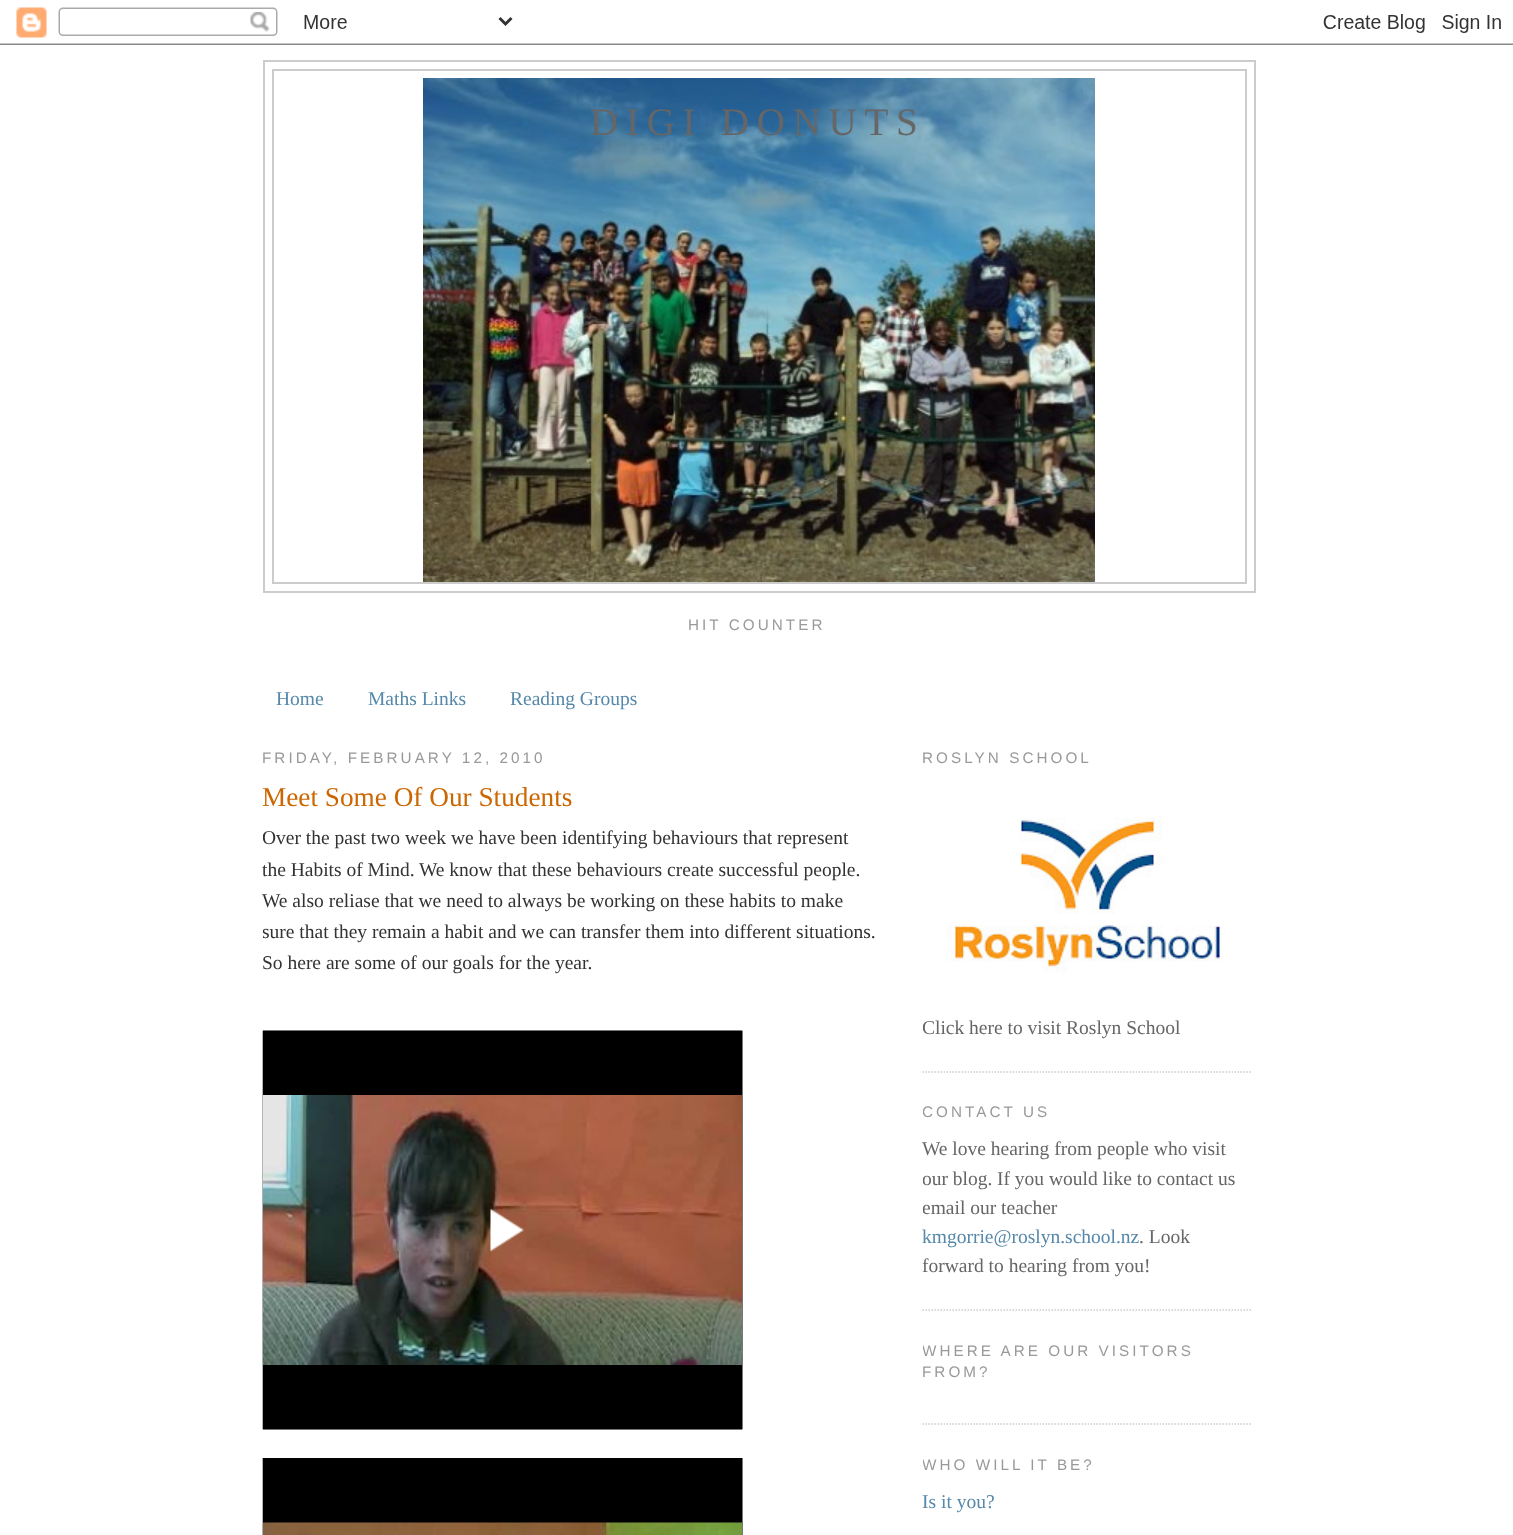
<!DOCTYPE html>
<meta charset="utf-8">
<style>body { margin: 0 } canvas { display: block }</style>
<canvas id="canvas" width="1513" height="1535"></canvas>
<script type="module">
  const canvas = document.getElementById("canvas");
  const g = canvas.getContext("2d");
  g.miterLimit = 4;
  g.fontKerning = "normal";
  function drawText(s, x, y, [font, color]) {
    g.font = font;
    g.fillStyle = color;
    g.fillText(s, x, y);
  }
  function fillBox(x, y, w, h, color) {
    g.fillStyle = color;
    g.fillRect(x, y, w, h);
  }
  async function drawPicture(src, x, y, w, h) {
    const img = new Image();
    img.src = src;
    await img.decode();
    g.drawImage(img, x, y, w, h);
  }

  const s1 = ["39px Liberation Serif", "#666666"];
  const s2 = ["15.25px Liberation Sans", "#999999"];
  const s3 = ["19.5px Liberation Serif", "#5588AA"];
  const s4 = ["27.25px Liberation Serif", "#CC6600"];
  const s5 = ["19.5px Liberation Serif", "#333333"];
  const s6 = ["19.5px Liberation Serif", "#666666"];

  fillBox(0, 0, 1513, 1535, "#FFFFFF");
  await drawPicture("pic1.png", 0, 7, 1513, 38);
  g.strokeStyle = "#CCCCCC";
  g.lineWidth = 2;
  g.strokeRect(264, 61, 991, 531);
  g.strokeRect(273, 70, 973, 513);
  await drawPicture("pic2.png", 423, 78, 672, 504);
  g.letterSpacing = "7.75px";
  drawText("DIGI DONUTS", 590, 135, s1);
  g.letterSpacing = "3.05px";
  drawText("HIT COUNTER", 688, 630, s2);
  g.letterSpacing = "0px";
  drawText("Home", 276, 705, s3);
  drawText("Maths Links", 368, 705, s3);
  drawText("Reading Groups", 510, 705, s3);
  g.letterSpacing = "3.05px";
  drawText("FRIDAY, FEBRUARY 12, 2010", 262, 763, s2);
  g.letterSpacing = "0px";
  drawText("Meet Some Of Our Students", 262, 806, s4);
  g.save();
  g.beginPath();
  g.rect(263, 726, 615, 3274);
  g.clip();
  drawText("Over the past two week we have been identifying behaviours that represent", 262, 844, s5);
  g.restore();
  drawText("the Habits of Mind.", 262, 876, s5);
  drawText("We know that these behaviours create successful people.", 419, 876, s5);
  drawText("We also reliase that we need to always be working on these habits to make", 262, 907, s5);
  g.save();
  g.beginPath();
  g.rect(263, 726, 615, 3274);
  g.clip();
  drawText("sure that they remain a habit and we can transfer them into different situations.", 262, 938, s5);
  g.restore();
  drawText("So here are some of our goals for the year.", 262, 969, s5);
  await drawPicture("pic3.png", 262, 1030, 481, 400);
  await drawPicture("pic4.png", 262, 1458, 481, 77);
  g.beginPath();
  g.moveTo(922.5, 1072);
  g.lineTo(1252.5, 1072);
  g.lineWidth = 1.5;
  g.setLineDash([1.5, 1.5]);
  g.stroke();
  g.letterSpacing = "3.05px";
  drawText("ROSLYN SCHOOL", 922, 763, s2);
  await drawPicture("pic5.png", 946, 817, 277, 157);
  g.save();
  g.beginPath();
  g.rect(923, 726, 330, 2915);
  g.clip();
  g.letterSpacing = "0px";
  drawText("Click here to visit Roslyn School", 922, 1034, s6);
  g.restore();
  g.beginPath();
  g.moveTo(922.5, 1310);
  g.lineTo(1252.5, 1310);
  g.stroke();
  g.save();
  g.beginPath();
  g.rect(923, 726, 330, 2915);
  g.clip();
  drawText("CONTACT US", 922, 1117, s2);
  g.restore();
  g.letterSpacing = "0px";
  drawText("We love hearing from people who visit", 922, 1155, s6);
  g.save();
  g.beginPath();
  g.rect(923, 726, 330, 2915);
  g.clip();
  drawText("our blog.", 922, 1185, s6);
  g.restore();
  drawText("If you would like to contact us", 997, 1185, s6);
  g.save();
  g.beginPath();
  g.rect(923, 726, 330, 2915);
  g.clip();
  drawText("email our teacher", 922, 1214, s6);
  g.restore();
  drawText("kmgorrie@roslyn.school.nz", 922, 1243, s3);
  drawText(". Look", 1139, 1243, s6);
  drawText("forward to hearing from you!", 922, 1272, s6);
  g.beginPath();
  g.moveTo(922.5, 1424);
  g.lineTo(1252.5, 1424);
  g.stroke();
  g.save();
  g.beginPath();
  g.rect(923, 726, 330, 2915);
  g.clip();
  g.letterSpacing = "3.05px";
  drawText("WHERE ARE OUR VISITORS", 922, 1356, s2);
  g.restore();
  g.letterSpacing = "3.05px";
  drawText("FROM?", 922, 1377, s2);
  g.save();
  g.beginPath();
  g.rect(923, 726, 330, 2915);
  g.clip();
  drawText("WHO WILL IT BE?", 922, 1470, s2);
  g.restore();
  g.letterSpacing = "0px";
  drawText("Is it you?", 922, 1508, s3);
</script>
